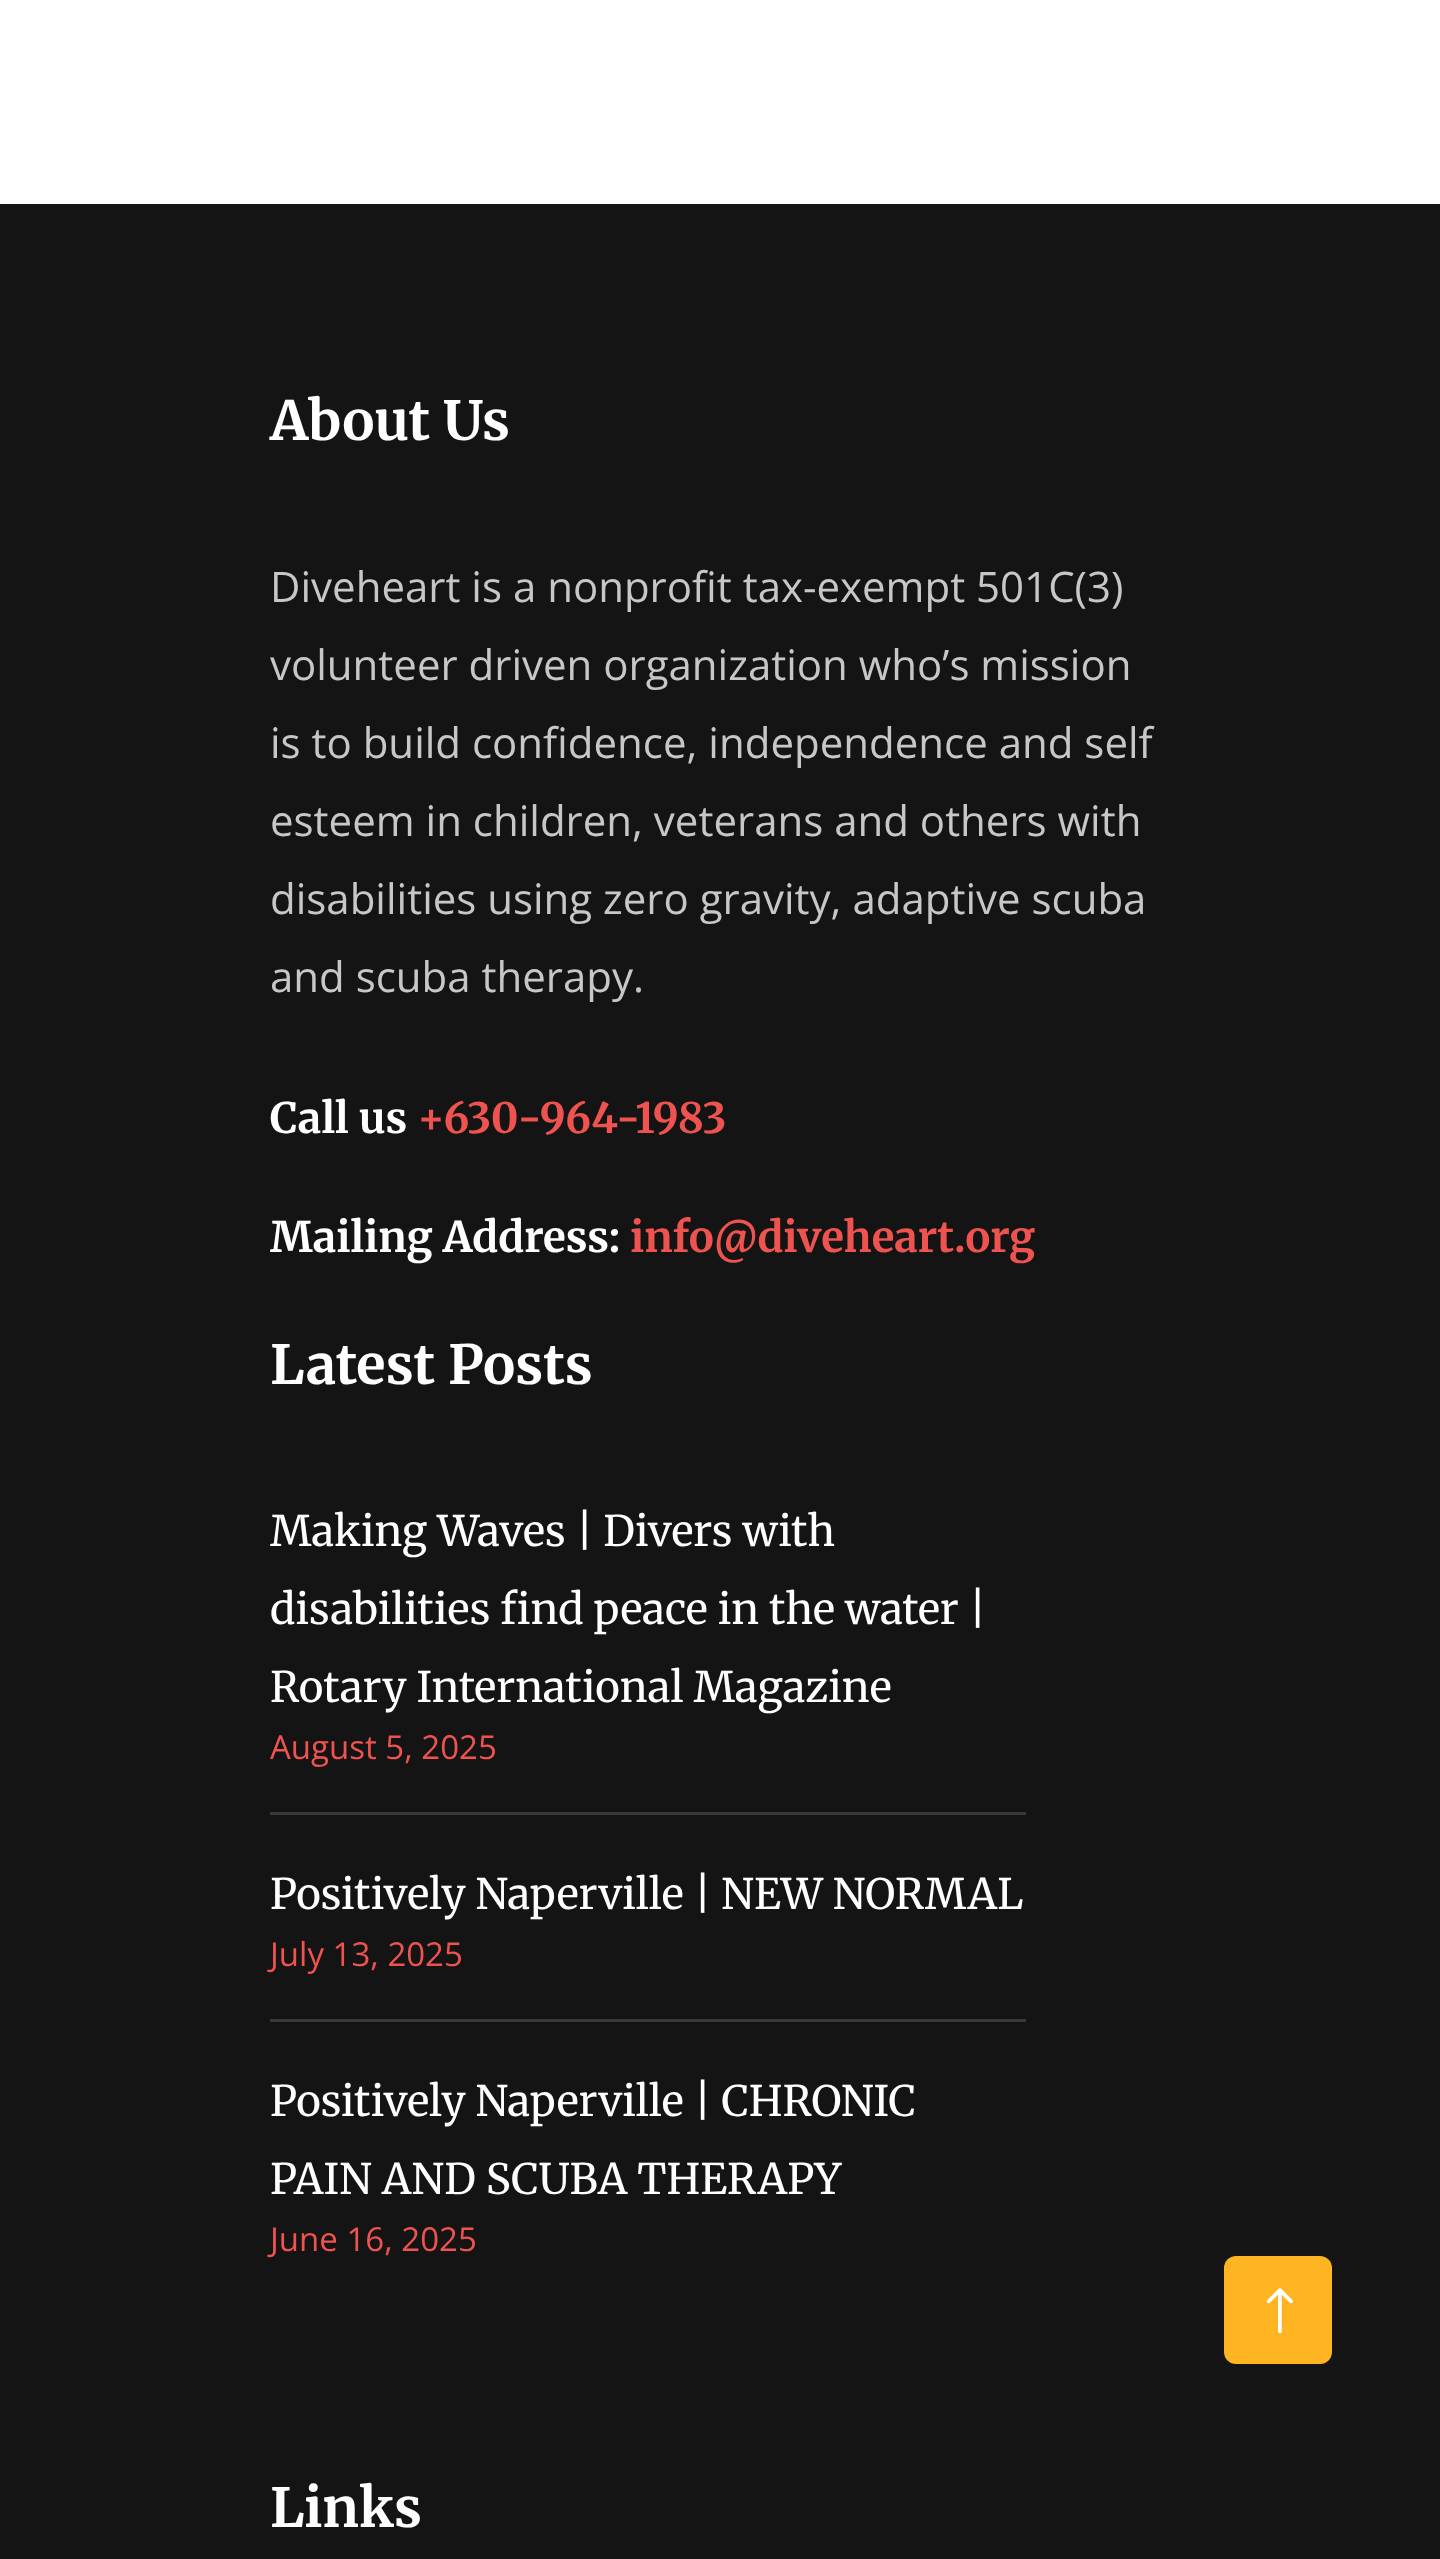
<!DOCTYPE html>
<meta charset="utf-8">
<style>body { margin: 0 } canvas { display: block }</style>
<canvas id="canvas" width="1440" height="2559"></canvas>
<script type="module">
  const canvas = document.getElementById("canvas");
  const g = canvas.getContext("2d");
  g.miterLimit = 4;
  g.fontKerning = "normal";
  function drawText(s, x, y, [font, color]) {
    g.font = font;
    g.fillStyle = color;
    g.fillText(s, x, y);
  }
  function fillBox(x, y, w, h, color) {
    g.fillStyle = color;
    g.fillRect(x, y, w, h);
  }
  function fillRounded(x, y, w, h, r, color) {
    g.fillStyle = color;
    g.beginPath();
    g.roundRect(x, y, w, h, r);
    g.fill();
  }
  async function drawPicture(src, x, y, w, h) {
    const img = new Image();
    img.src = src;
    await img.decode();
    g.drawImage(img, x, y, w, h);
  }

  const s1 = ["bold 54px Merriweather", "#FFFFFF"];
  const s2 = ["42px Open Sans", "#C7C7C7"];
  const s3 = ["bold 42px Merriweather", "#FFFFFF"];
  const s4 = ["bold 42px Merriweather", "#EF5350"];
  const s5 = ["42px Merriweather", "#FFFFFF"];
  const s6 = ["33px Open Sans", "#EF5350"];

  fillBox(0, 0, 1440, 2559, "#FFFFFF");
  fillBox(0, 204, 1440, 2355, "#141414");
  drawText("About Us", 270, 440, s1);
  drawText("Diveheart is a nonprofit tax-exempt 501C(3)", 270, 602, s2);
  drawText("volunteer driven organization who’s mission", 270, 680, s2);
  drawText("is to build confidence, independence and self", 270, 758, s2);
  drawText("esteem in children, veterans and others with", 270, 836, s2);
  drawText("disabilities using zero gravity, adaptive scuba", 270, 914, s2);
  drawText("and scuba therapy.", 270, 992, s2);
  drawText("Call us", 270, 1133, s3);
  drawText("+630-964-1983", 417, 1133, s4);
  drawText("Mailing Address:", 270, 1252, s3);
  drawText("info@diveheart.org", 630, 1252, s4);
  drawText("Latest Posts", 270, 1384, s1);
  fillBox(270, 1812, 756, 3, "#393837");
  drawText("Making Waves | Divers with", 270, 1546, s5);
  drawText("disabilities find peace in the water |", 270, 1624, s5);
  drawText("Rotary International Magazine", 270, 1702, s5);
  drawText("August 5, 2025", 270, 1759, s6);
  fillBox(270, 2019, 756, 3, "#393837");
  drawText("Positively Naperville | NEW NORMAL", 270, 1909, s5);
  drawText("July 13, 2025", 270, 1966, s6);
  drawText("Positively Naperville | CHRONIC", 270, 2116, s5);
  drawText("PAIN AND SCUBA THERAPY", 270, 2194, s5);
  drawText("June 16, 2025", 270, 2251, s6);
  drawText("Links", 270, 2527, s1);
  fillRounded(1224, 2256, 108, 108, 12, "#FFB422");
  await drawPicture("pic1.png", 1266, 2288, 27, 46);
</script>
